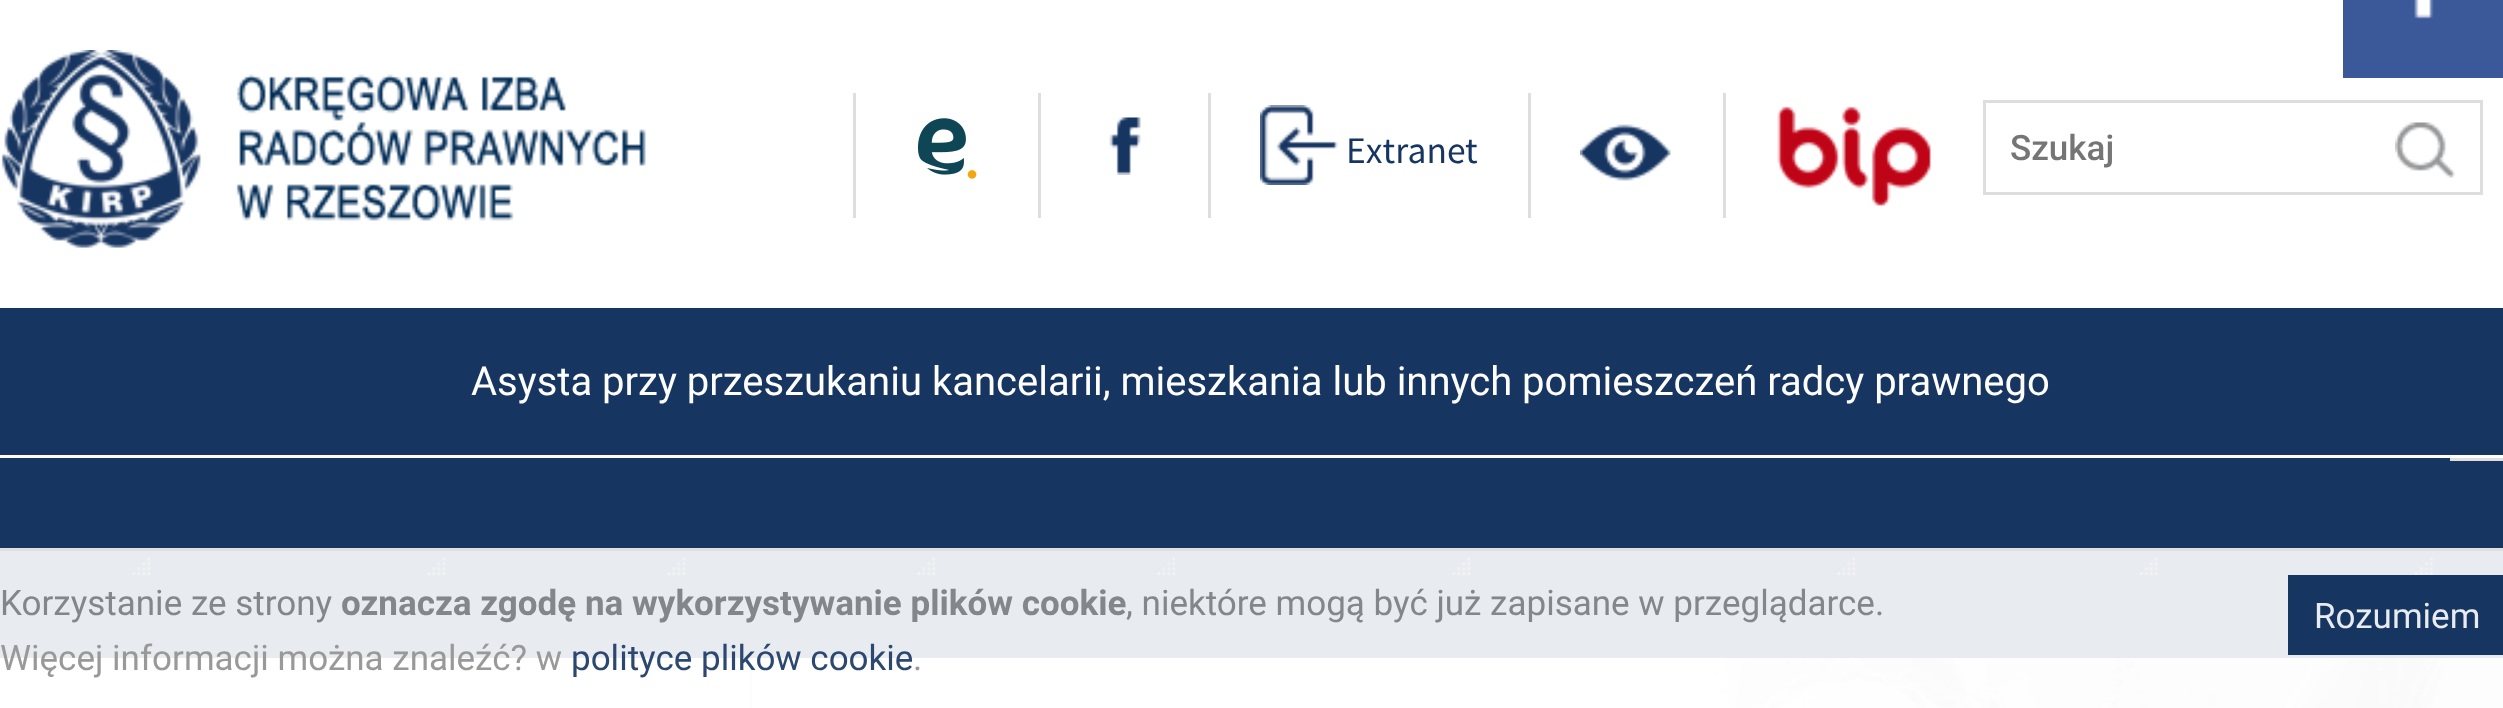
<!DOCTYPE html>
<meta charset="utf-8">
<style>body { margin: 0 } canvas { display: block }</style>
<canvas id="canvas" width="2503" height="708"></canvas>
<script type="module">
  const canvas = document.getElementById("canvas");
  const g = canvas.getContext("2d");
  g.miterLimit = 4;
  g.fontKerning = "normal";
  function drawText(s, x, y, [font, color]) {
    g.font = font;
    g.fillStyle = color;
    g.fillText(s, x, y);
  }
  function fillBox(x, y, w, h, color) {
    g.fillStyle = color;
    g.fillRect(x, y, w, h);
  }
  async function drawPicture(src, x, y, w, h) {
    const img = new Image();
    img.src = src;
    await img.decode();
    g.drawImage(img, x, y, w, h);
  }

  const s1 = ["37.5px Source Sans Pro", "#173561"];
  const s2 = ["500 35px Roboto", "#757575"];
  const s3 = ["40px Roboto", "#FFFFFF"];
  const s4 = ["35px Roboto", "#83868A"];
  const s5 = ["bold 35px Roboto", "#83868A"];
  const s6 = ["35px Roboto", "#E8EBEF"];
  const s7 = ["35px Roboto", "#99999A"];
  const s8 = ["35px Roboto", "#2D4870"];

  fillBox(0, 0, 2503, 708, "#FFFFFF");
  fillBox(2343, 0, 160, 78, "#3B5998");
  await drawPicture("pic1.png", 2414, 0, 20, 19);
  await drawPicture("pic2.png", 1, 50, 645, 198);
  fillBox(853, 93, 3, 125, "#DEDEDE");
  await drawPicture("pic3.png", 918, 118, 59, 61);
  fillBox(1038, 93, 3, 125, "#DEDEDE");
  await drawPicture("pic4.png", 1109, 117, 32, 58);
  fillBox(1208, 93, 3, 125, "#DEDEDE");
  await drawPicture("pic5.png", 1260, 105, 78, 80);
  drawText("Extranet", 1346, 163, s1);
  fillBox(1528, 93, 3, 125, "#DEDEDE");
  await drawPicture("pic6.png", 1580, 124, 91, 57);
  fillBox(1723, 93, 3, 125, "#DEDEDE");
  await drawPicture("pic7.png", 1777, 106, 154, 100);
  g.strokeStyle = "#DEDEDE";
  g.lineWidth = 3;
  g.strokeRect(1984.5, 101.5, 497, 92);
  drawText("Szukaj", 2010, 160, s2);
  await drawPicture("pic8.png", 2395, 122, 60, 56);
  fillBox(0, 308, 2503, 147, "#173561");
  drawText("Asysta przy przeszukaniu kancelarii, mieszkania lub innych pomieszczeń radcy prawnego", 471, 395, s3);
  fillBox(2450, 461, 53, 197, "#173561");
  fillBox(2450, 458, 53, 3, "#DEDEDE");
  fillBox(0, 458, 2450, 200, "#173561");
  await drawPicture("pic9.png", 132, 557, 18, 18);
  await drawPicture("pic9.png", 427, 557, 18, 18);
  await drawPicture("pic9.png", 667, 557, 18, 18);
  await drawPicture("pic9.png", 917, 557, 18, 18);
  await drawPicture("pic10.png", 1157, 557, 18, 18);
  await drawPicture("pic9.png", 1452, 557, 18, 18);
  await drawPicture("pic10.png", 1837, 557, 18, 18);
  await drawPicture("pic11.png", 2140, 557, 18, 18);
  await drawPicture("pic12.png", 2415, 557, 18, 18);
  fillBox(750, 658, 3, 50, "#DEDEDE");
  await drawPicture("pic13.png", 752, 658, 1751, 50);
  fillBox(0, 548, 2503, 160, "rgba(255, 255, 255, 0.9)");
  fillBox(0, 548, 2503, 3, "rgba(222, 222, 222, 0.9)");
  drawText("Korzystanie ze strony", 0, 615, s4);
  drawText("oznacza zgodę na wykorzystywanie plików cookie", 341, 615, s5);
  drawText(", niektóre mogą być już zapisane w przeglądarce.", 1126, 615, s4);
  fillBox(2288, 575, 215, 80, "#173561");
  drawText("Rozumiem", 2314, 628, s6);
  drawText("Więcej informacji można znaleźć? w", 0, 670, s7);
  drawText("polityce plików cookie", 571, 670, s8);
  drawText(".", 913, 670, s7);
</script>
